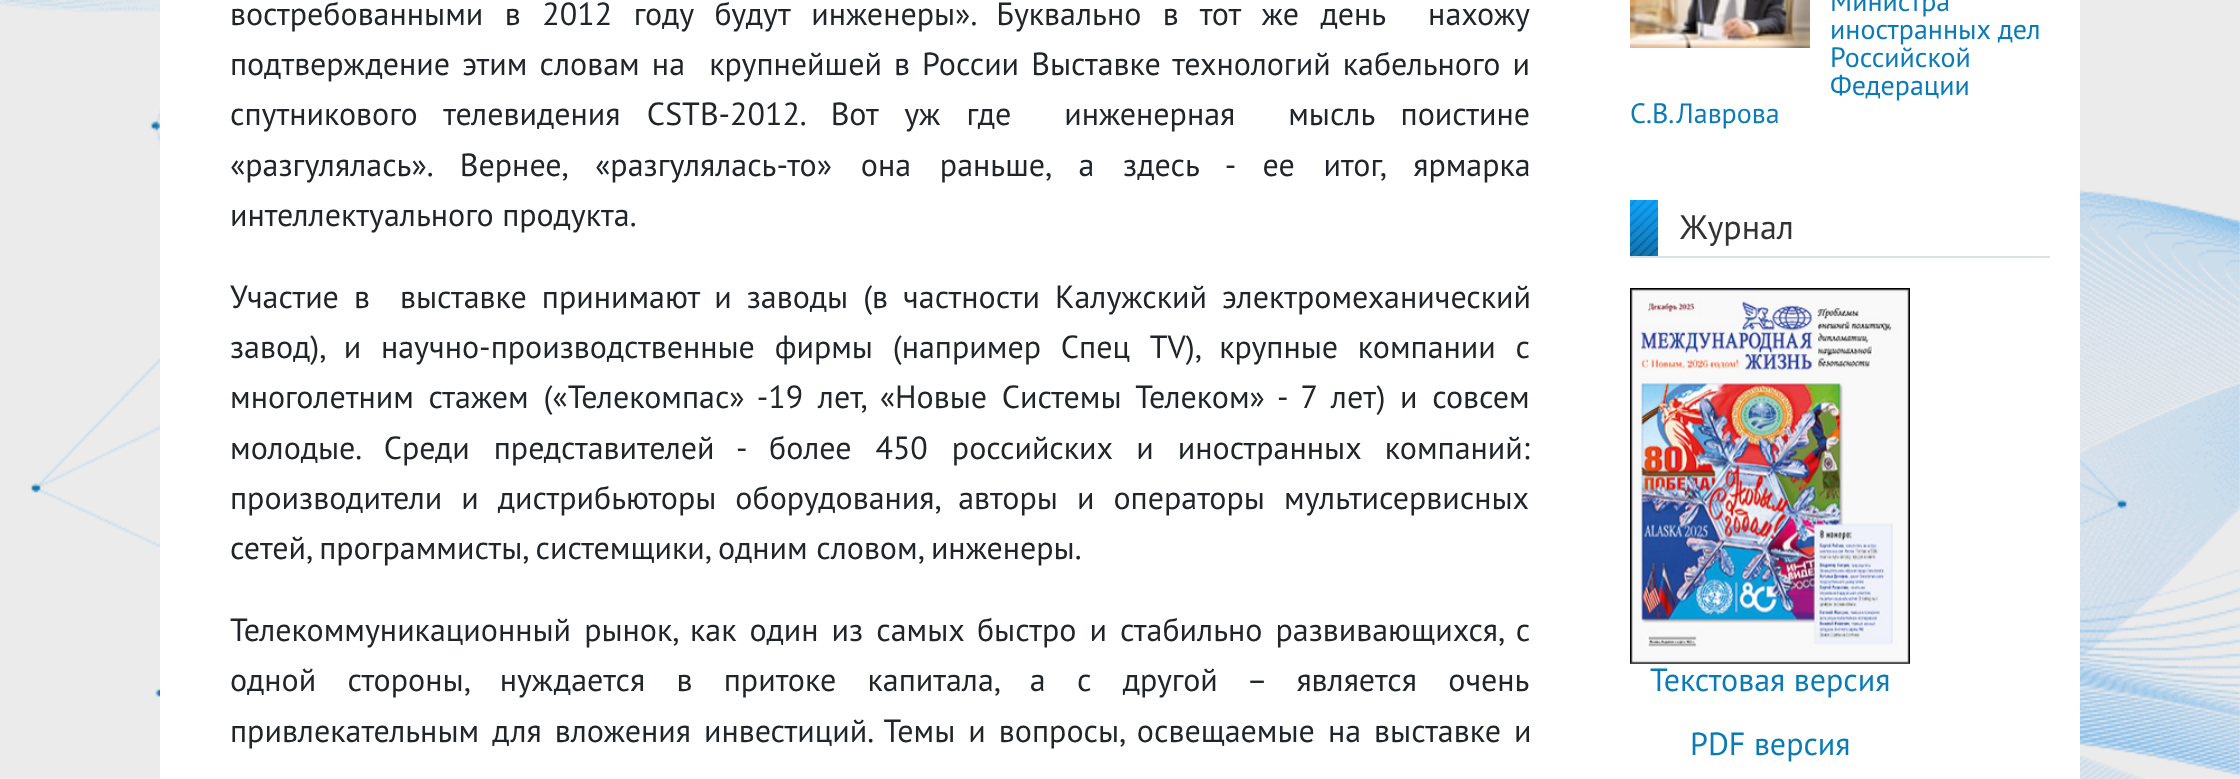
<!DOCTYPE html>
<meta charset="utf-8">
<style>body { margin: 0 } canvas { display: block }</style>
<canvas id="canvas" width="2240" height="779"></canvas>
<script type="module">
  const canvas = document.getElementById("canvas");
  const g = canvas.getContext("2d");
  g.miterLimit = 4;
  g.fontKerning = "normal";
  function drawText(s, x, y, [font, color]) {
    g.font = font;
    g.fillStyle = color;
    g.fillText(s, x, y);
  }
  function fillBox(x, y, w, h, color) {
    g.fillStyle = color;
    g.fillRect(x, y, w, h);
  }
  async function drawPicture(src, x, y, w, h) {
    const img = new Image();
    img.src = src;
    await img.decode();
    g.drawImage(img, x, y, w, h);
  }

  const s1 = ["32px PT Sans", "#212529"];
  const s2 = ["28px PT Sans", "#0B7BB8"];
  const s3 = ["34px PT Sans", "#333333"];
  const s4 = ["32px PT Sans", "#0B7BB8"];

  fillBox(0, 0, 2240, 779, "#FFFFFF");
  await drawPicture("pic1.png", 0, 0, 2240, 779);
  fillBox(160, 0, 1920, 779, "#FFFFFF");
  g.wordSpacing = "13px";
  drawText("востребованными в 2012 году будут инженеры». Буквально в тот же день  нахожу", 230, 25, s1);
  g.wordSpacing = "3.6px";
  drawText("подтверждение этим словам на  крупнейшей в России Выставке технологий кабельного и", 230, 75, s1);
  g.wordSpacing = "17.9px";
  drawText("спутникового телевидения CSTB-2012. Вот уж где  инженерная  мысль поистине", 230, 125, s1);
  g.wordSpacing = "20.25px";
  drawText("«разгулялась». Вернее, «разгулялась-то» она раньше, а здесь - ее итог, ярмарка", 230, 176, s1);
  g.wordSpacing = "0px";
  drawText("интеллектуального продукта.", 230, 226, s1);
  g.wordSpacing = "6.5px";
  drawText("Участие в  выставке принимают и заводы (в частности Калужский электромеханический", 230, 308, s1);
  g.wordSpacing = "11.25px";
  drawText("завод), и научно-производственные фирмы (например Спец TV), крупные компании с", 230, 358, s1);
  g.wordSpacing = "6.1px";
  drawText("многолетним стажем («Телекомпас» -19 лет, «Новые Системы Телеком» - 7 лет) и совсем", 230, 408, s1);
  g.wordSpacing = "15.5px";
  drawText("молодые. Среди представителей - более 450 российских и иностранных компаний:", 230, 459, s1);
  g.wordSpacing = "10.5px";
  drawText("производители и дистрибьюторы оборудования, авторы и операторы мультисервисных", 230, 509, s1);
  g.wordSpacing = "0px";
  drawText("сетей, программисты, системщики, одним словом, инженеры.", 230, 559, s1);
  g.wordSpacing = "4.5px";
  drawText("Телекоммуникационный рынок, как один из самых быстро и стабильно развивающихся, с", 230, 641, s1);
  g.wordSpacing = "22.75px";
  drawText("одной стороны, нуждается в притоке капитала, а с другой – является очень", 230, 691, s1);
  g.wordSpacing = "4.5px";
  drawText("привлекательным для вложения инвестиций. Темы и вопросы, освещаемые на выставке и", 230, 742, s1);
  await drawPicture("pic2.png", 1630, 0, 180, 48);
  g.wordSpacing = "0px";
  drawText("Министра", 1830, 11, s2);
  drawText("иностранных дел", 1830, 39, s2);
  drawText("Российской", 1830, 67, s2);
  drawText("Федерации", 1830, 95, s2);
  drawText("С.В.Лаврова", 1630, 123, s2);
  fillBox(1630, 256, 420, 2, "#DCE1E5");
  await drawPicture("pic3.png", 1630, 200, 28, 56);
  drawText("Журнал", 1680, 239, s3);
  await drawPicture("pic4.png", 1630, 288, 280, 376);
  drawText("Текстовая версия", 1650, 691, s4);
  drawText("PDF версия", 1690, 755, s4);
</script>
